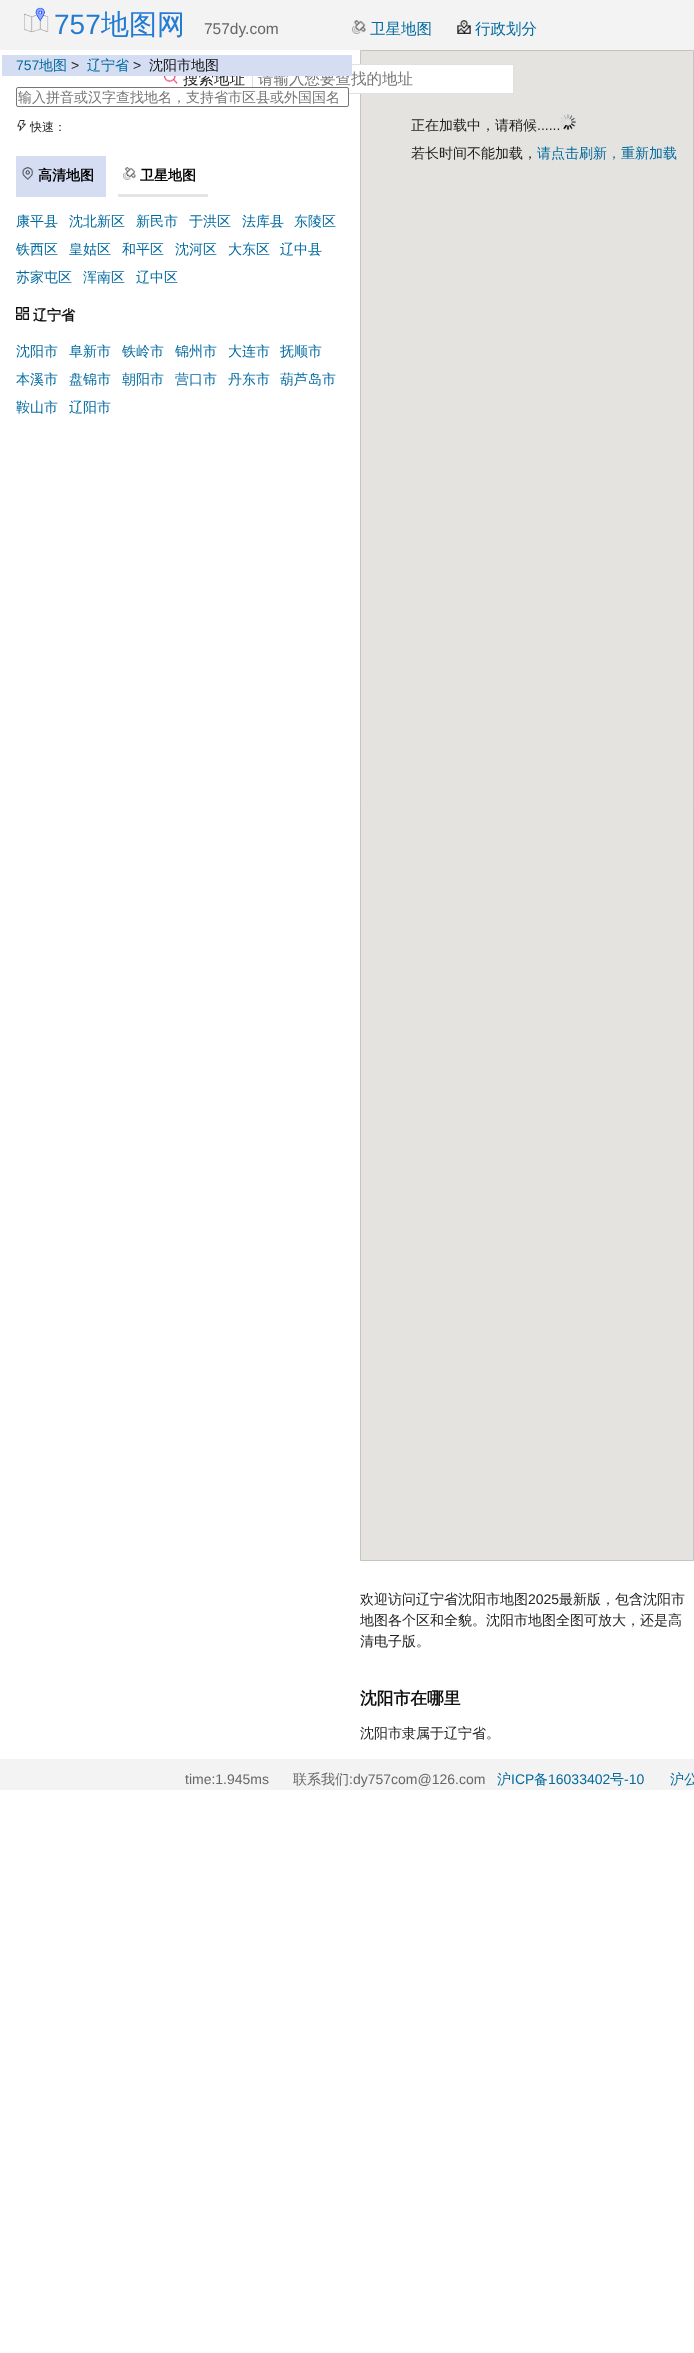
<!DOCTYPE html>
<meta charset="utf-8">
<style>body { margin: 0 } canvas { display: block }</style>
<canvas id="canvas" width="694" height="2353"></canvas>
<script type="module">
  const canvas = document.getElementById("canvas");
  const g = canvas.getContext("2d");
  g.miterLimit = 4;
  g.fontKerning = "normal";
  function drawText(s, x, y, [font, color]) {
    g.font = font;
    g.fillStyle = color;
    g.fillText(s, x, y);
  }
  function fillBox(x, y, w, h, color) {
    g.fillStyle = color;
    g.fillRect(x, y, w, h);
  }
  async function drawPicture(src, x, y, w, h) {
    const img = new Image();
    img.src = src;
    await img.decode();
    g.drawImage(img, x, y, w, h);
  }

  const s1 = ["28px Liberation Sans", "#227AD3"];
  const s2 = ["500 28px WenQuanYi Zen Hei", "#227AD3"];
  const s3 = ["15.5px Liberation Sans", "#666666"];
  const s4 = ["500 15.5px WenQuanYi Zen Hei", "#016A9F"];
  const s5 = ["500 15.5px WenQuanYi Zen Hei", "#222222"];
  const s6 = ["500 15.5px WenQuanYi Zen Hei", "#757575"];
  const s7 = ["14px Liberation Sans", "#016A9F"];
  const s8 = ["500 14px WenQuanYi Zen Hei", "#016A9F"];
  const s9 = ["14px Liberation Sans", "#222222"];
  const s10 = ["500 14px WenQuanYi Zen Hei", "#111111"];
  const s11 = ["500 14px WenQuanYi Zen Hei", "#757575"];
  const s12 = ["500 12px WenQuanYi Zen Hei", "#222222"];
  const s13 = ["bold 14px WenQuanYi Zen Hei", "#000000"];
  const s14 = ["bold 14px WenQuanYi Zen Hei", "#111111"];
  const s15 = ["500 14px WenQuanYi Zen Hei", "#222222"];
  const s16 = ["bold 16.75px WenQuanYi Zen Hei", "#111111"];
  const s17 = ["14px Liberation Sans", "#666666"];
  const s18 = ["500 14px WenQuanYi Zen Hei", "#666666"];

  fillBox(0, 0, 694, 2353, "#FFFFFF");
  fillBox(0, 0, 694, 50, "#F3F3F3");
  await drawPicture("pic1.png", 24, 7, 25, 26);
  drawText("757", 54, 34, s1);
  drawText("地图网", 101, 34, s2);
  drawText("757dy.com", 204, 34, s3);
  await drawPicture("pic2.png", 352, 20, 14, 14);
  drawText("卫星地图", 370, 34, s4);
  await drawPicture("pic3.png", 457, 20, 14, 14);
  drawText("行政划分", 475, 34, s4);
  await drawPicture("pic4.png", 164, 76, 14, 8);
  drawText("搜索地址", 183, 84, s5);
  g.fillStyle = "#E5E3DF";
  g.beginPath();
  g.rect(360.5, 50.5, 333, 1510);
  g.fill();
  g.strokeStyle = "#C5C4C1";
  g.stroke();
  fillBox(360, 65, 153, 28, "#FFFFFF");
  g.strokeStyle = "#E0E0E0";
  g.strokeRect(252.5, 64.5, 261, 29);
  drawText("请输入您要查找的地址", 258, 84, s6);
  fillBox(2, 55, 350, 21, "#D5DDF3");
  drawText("757", 16, 70, s7);
  drawText("地图", 39, 70, s8);
  drawText(">", 71, 70, s9);
  drawText("辽宁省", 87, 70, s8);
  drawText(">", 133, 70, s9);
  drawText("沈阳市地图", 149, 70, s10);
  g.fillStyle = "#FFFFFF";
  g.beginPath();
  g.roundRect(16.5, 87.5, 332, 19, 1.5);
  g.fill();
  g.strokeStyle = "#767676";
  g.stroke();
  drawText("输入拼音或汉字查找地名，支持省市区县或外国国名", 18, 102, s11);
  await drawPicture("pic5.png", 17, 120, 9, 11);
  drawText("快速：", 30, 131, s12);
  fillBox(16, 156, 90, 41, "#D5DDF3");
  await drawPicture("pic6.png", 22, 167, 12, 13);
  drawText("高清地图", 38, 180, s13);
  fillBox(118, 194, 90, 3, "#E5E5E5");
  await drawPicture("pic7.png", 123, 167, 13, 13);
  drawText("卫星地图", 140, 180, s13);
  drawText("康平县", 16, 226, s8);
  drawText("沈北新区", 69, 226, s8);
  drawText("新民市", 136, 226, s8);
  drawText("于洪区", 189, 226, s8);
  drawText("法库县", 242, 226, s8);
  drawText("东陵区", 294, 226, s8);
  drawText("铁西区", 16, 254, s8);
  drawText("皇姑区", 69, 254, s8);
  drawText("和平区", 122, 254, s8);
  drawText("沈河区", 175, 254, s8);
  drawText("大东区", 228, 254, s8);
  drawText("辽中县", 280, 254, s8);
  drawText("苏家屯区", 16, 282, s8);
  drawText("浑南区", 83, 282, s8);
  drawText("辽中区", 136, 282, s8);
  await drawPicture("pic8.png", 16, 307, 13, 13);
  drawText("辽宁省", 33, 320, s14);
  drawText("沈阳市", 16, 356, s8);
  drawText("阜新市", 69, 356, s8);
  drawText("铁岭市", 122, 356, s8);
  drawText("锦州市", 175, 356, s8);
  drawText("大连市", 228, 356, s8);
  drawText("抚顺市", 280, 356, s8);
  drawText("本溪市", 16, 384, s8);
  drawText("盘锦市", 69, 384, s8);
  drawText("朝阳市", 122, 384, s8);
  drawText("营口市", 175, 384, s8);
  drawText("丹东市", 228, 384, s8);
  drawText("葫芦岛市", 280, 384, s8);
  drawText("鞍山市", 16, 412, s8);
  drawText("辽阳市", 69, 412, s8);
  drawText("正在加载中，请稍候", 411, 130, s15);
  drawText("......", 537, 130, s9);
  await drawPicture("pic9.png", 560, 114, 16, 16);
  drawText("若长时间不能加载，", 411, 158, s15);
  drawText("请点击刷新，重新加载", 537, 158, s8);
  drawText("欢迎访问辽宁省沈阳市地图", 360, 1604, s15);
  drawText("2025", 528, 1604, s9);
  drawText("最新版，包含沈阳市", 559, 1604, s15);
  drawText("地图各个区和全貌。沈阳市地图全图可放大，还是高", 360, 1625, s15);
  drawText("清电子版。", 360, 1646, s15);
  drawText("沈阳市在哪里", 360, 1704, s16);
  drawText("沈阳市隶属于辽宁省。", 360, 1738, s15);
  fillBox(0, 1759, 694, 31, "#F3F3F3");
  drawText("time:1.945ms", 185, 1784, s17);
  drawText("联系我们", 293, 1784, s18);
  drawText(":dy757com@126.com", 349, 1784, s17);
  drawText("沪", 497, 1784, s8);
  drawText("ICP", 511, 1784, s7);
  drawText("备", 534, 1784, s8);
  drawText("16033402", 548, 1784, s7);
  drawText("号", 610, 1784, s8);
  drawText("-10", 624, 1784, s7);
  drawText("沪公", 670, 1784, s8);
</script>
